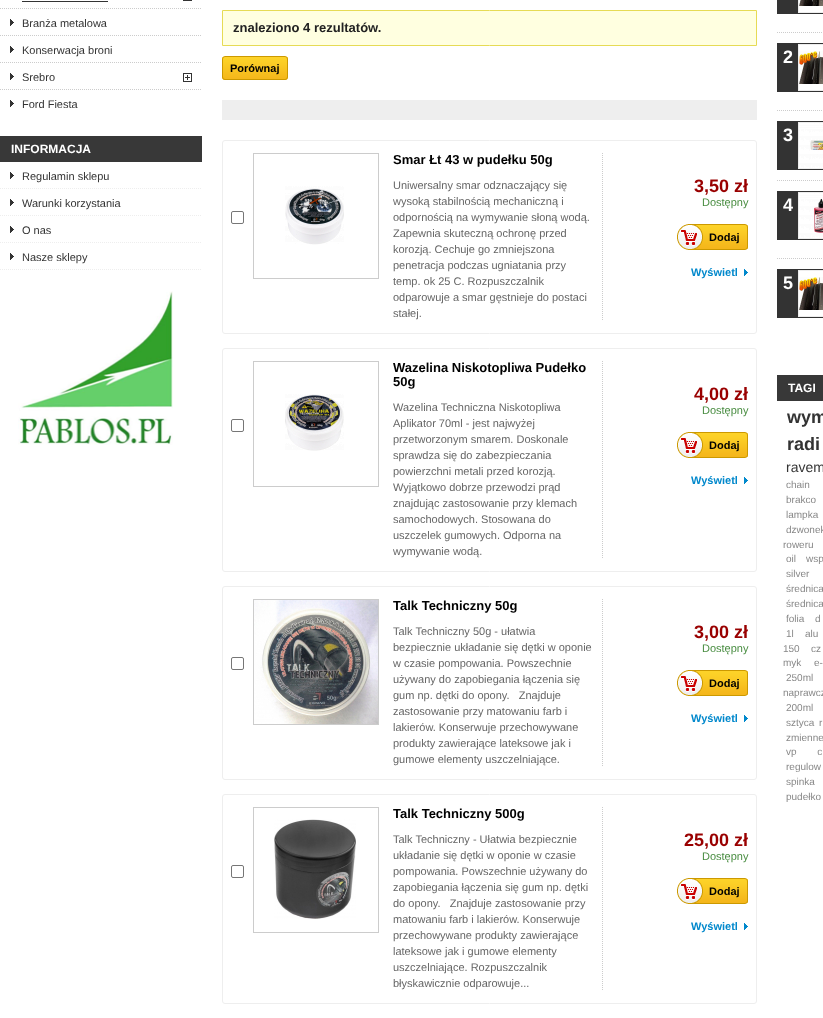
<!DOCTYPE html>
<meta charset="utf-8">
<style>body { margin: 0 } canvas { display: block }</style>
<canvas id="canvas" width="823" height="1018"></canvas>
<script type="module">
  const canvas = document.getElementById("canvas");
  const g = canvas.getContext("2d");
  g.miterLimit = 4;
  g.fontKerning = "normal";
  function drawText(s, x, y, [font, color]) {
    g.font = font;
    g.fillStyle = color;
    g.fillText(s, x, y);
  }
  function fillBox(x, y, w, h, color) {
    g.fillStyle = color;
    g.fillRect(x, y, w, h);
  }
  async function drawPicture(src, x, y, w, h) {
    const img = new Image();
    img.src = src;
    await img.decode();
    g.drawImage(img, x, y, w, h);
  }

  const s1 = ["11px Liberation Sans", "#333333"];
  const s2 = ["bold 12px Liberation Sans", "#FFFFFF"];
  const s3 = ["bold 13px Liberation Sans", "#222222"];
  const s4 = ["bold 11px Liberation Sans", "#000000"];
  const s5 = ["bold 13px Liberation Sans", "#000000"];
  const s6 = ["11px Liberation Sans", "#666666"];
  const s7 = ["bold 18px Liberation Sans", "#990000"];
  const s8 = ["11px Liberation Sans", "#488C40"];
  const s9 = ["bold 11px Liberation Sans", "#0088CC"];
  const s10 = ["bold 18px Liberation Sans", "#FFFFFF"];
  const s11 = ["bold 18px Liberation Sans", "#333333"];
  const s12 = ["14px Liberation Sans", "#333333"];
  const s13 = ["10px Liberation Sans", "#888888"];

  fillBox(0, 0, 823, 1018, "#FFFFFF");
  g.beginPath();
  g.moveTo(0, 8.5);
  g.lineTo(202, 8.5);
  g.strokeStyle = "#CCCCCC";
  g.setLineDash([1, 1]);
  g.stroke();
  fillBox(183, 0, 9, 1, "#333333");
  fillBox(22, 1, 86, 1, "#333333");
  g.beginPath();
  g.moveTo(0, 35.5);
  g.lineTo(202, 35.5);
  g.stroke();
  await drawPicture("pic1.png", 10, 19, 4, 7);
  drawText("Branża metalowa", 22, 27, s1);
  g.beginPath();
  g.moveTo(0, 62.5);
  g.lineTo(202, 62.5);
  g.stroke();
  await drawPicture("pic1.png", 10, 46, 4, 7);
  drawText("Konserwacja broni", 22, 54, s1);
  g.beginPath();
  g.moveTo(0, 89.5);
  g.lineTo(202, 89.5);
  g.stroke();
  await drawPicture("pic1.png", 10, 73, 4, 7);
  drawText("Srebro", 22, 81, s1);
  await drawPicture("pic2.png", 183, 73, 9, 9);
  await drawPicture("pic1.png", 10, 100, 4, 7);
  drawText("Ford Fiesta", 22, 108, s1);
  fillBox(0, 136, 202, 26, "#383838");
  drawText("INFORMACJA", 11, 153, s2);
  g.beginPath();
  g.moveTo(0, 188.5);
  g.lineTo(202, 188.5);
  g.strokeStyle = "#EEEEEE";
  g.stroke();
  await drawPicture("pic1.png", 10, 172, 4, 7);
  drawText("Regulamin sklepu", 22, 180, s1);
  g.beginPath();
  g.moveTo(0, 215.5);
  g.lineTo(202, 215.5);
  g.stroke();
  await drawPicture("pic1.png", 10, 199, 4, 7);
  drawText("Warunki korzystania", 22, 207, s1);
  g.beginPath();
  g.moveTo(0, 242.5);
  g.lineTo(202, 242.5);
  g.stroke();
  await drawPicture("pic1.png", 10, 226, 4, 7);
  drawText("O nas", 22, 234, s1);
  g.beginPath();
  g.moveTo(0, 269.5);
  g.lineTo(202, 269.5);
  g.stroke();
  await drawPicture("pic1.png", 10, 253, 4, 7);
  drawText("Nasze sklepy", 22, 261, s1);
  await drawPicture("pic3.png", 18, 291, 155, 154);
  g.fillStyle = "#FFFFE0";
  g.beginPath();
  g.rect(222.5, 10.5, 534, 35);
  g.fill();
  g.strokeStyle = "#E6DB55";
  g.setLineDash([]);
  g.stroke();
  drawText("znaleziono 4 rezultatów.", 233, 32, s3);
  await drawPicture("pic4.png", 222, 57, 66, 23);
  g.beginPath();
  g.roundRect(222.5, 56.5, 65, 23, 2.5);
  g.strokeStyle = "#CC9900";
  g.stroke();
  drawText("Porównaj", 230, 72, s4);
  fillBox(222, 100, 535, 20, "#EEEEEE");
  g.beginPath();
  g.roundRect(222.5, 140.5, 534, 193, 2.5);
  g.strokeStyle = "#EEEEEE";
  g.stroke();
  g.beginPath();
  g.roundRect(231.5, 211.5, 12, 12, 1.5);
  g.strokeStyle = "#767676";
  g.stroke();
  g.beginPath();
  g.moveTo(602.5, 153);
  g.lineTo(602.5, 321);
  g.strokeStyle = "#CCCCCC";
  g.setLineDash([1, 1]);
  g.stroke();
  g.setLineDash([]);
  g.strokeRect(253.5, 153.5, 125, 125);
  await drawPicture("pic5.png", 285, 186, 59, 59);
  drawText("Smar Łt 43 w pudełku 50g", 393, 164, s5);
  drawText("Uniwersalny smar odznaczający się", 393, 189, s6);
  drawText("wysoką stabilnością mechaniczną i", 393, 205, s6);
  drawText("odpornością na wymywanie słoną wodą.", 393, 221, s6);
  drawText("Zapewnia skuteczną ochronę przed", 393, 237, s6);
  drawText("korozją. Cechuje go zmniejszona", 393, 253, s6);
  drawText("penetracja podczas ugniatania przy", 393, 269, s6);
  drawText("temp. ok 25 C. Rozpuszczalnik", 393, 285, s6);
  drawText("odparowuje a smar gęstnieje do postaci", 393, 301, s6);
  drawText("stałej.", 393, 317, s6);
  drawText("3,50 zł", 694, 192, s7);
  drawText("Dostępny", 702, 206, s8);
  await drawPicture("pic6.png", 695, 225, 53, 24);
  g.beginPath();
  g.roundRect(688.5, 224.5, 59, 25, 2.5);
  g.strokeStyle = "#CC9900";
  g.stroke();
  await drawPicture("pic7.png", 677, 224, 26, 26);
  drawText("Dodaj", 709, 241, s4);
  await drawPicture("pic8.png", 744, 269, 4, 7);
  drawText("Wyświetl", 691, 276, s9);
  g.beginPath();
  g.roundRect(222.5, 348.5, 534, 223, 2.5);
  g.strokeStyle = "#EEEEEE";
  g.stroke();
  g.beginPath();
  g.roundRect(231.5, 419.5, 12, 12, 1.5);
  g.strokeStyle = "#767676";
  g.stroke();
  g.beginPath();
  g.moveTo(602.5, 361);
  g.lineTo(602.5, 559);
  g.strokeStyle = "#CCCCCC";
  g.setLineDash([1, 1]);
  g.stroke();
  g.setLineDash([]);
  g.strokeRect(253.5, 361.5, 125, 125);
  await drawPicture("pic9.png", 285, 394, 59, 57);
  drawText("Wazelina Niskotopliwa Pudełko", 393, 372, s5);
  drawText("50g", 393, 386, s5);
  drawText("Wazelina Techniczna Niskotopliwa", 393, 411, s6);
  drawText("Aplikator 70ml - jest najwyżej", 393, 427, s6);
  drawText("przetworzonym smarem. Doskonale", 393, 443, s6);
  drawText("sprawdza się do zabezpieczania", 393, 459, s6);
  drawText("powierzchni metali przed korozją.", 393, 475, s6);
  drawText("Wyjątkowo dobrze przewodzi prąd", 393, 491, s6);
  drawText("znajdując zastosowanie przy klemach", 393, 507, s6);
  drawText("samochodowych. Stosowana do", 393, 523, s6);
  drawText("uszczelek gumowych. Odporna na", 393, 539, s6);
  drawText("wymywanie wodą.", 393, 555, s6);
  drawText("4,00 zł", 694, 400, s7);
  drawText("Dostępny", 702, 414, s8);
  await drawPicture("pic6.png", 695, 433, 53, 24);
  g.beginPath();
  g.roundRect(688.5, 432.5, 59, 25, 2.5);
  g.strokeStyle = "#CC9900";
  g.stroke();
  await drawPicture("pic7.png", 677, 432, 26, 26);
  drawText("Dodaj", 709, 449, s4);
  await drawPicture("pic8.png", 744, 477, 4, 7);
  drawText("Wyświetl", 691, 484, s9);
  g.beginPath();
  g.roundRect(222.5, 586.5, 534, 193, 2.5);
  g.strokeStyle = "#EEEEEE";
  g.stroke();
  g.beginPath();
  g.roundRect(231.5, 657.5, 12, 12, 1.5);
  g.strokeStyle = "#767676";
  g.stroke();
  g.beginPath();
  g.moveTo(602.5, 599);
  g.lineTo(602.5, 767);
  g.strokeStyle = "#CCCCCC";
  g.setLineDash([1, 1]);
  g.stroke();
  g.setLineDash([]);
  g.strokeRect(253.5, 599.5, 125, 125);
  await drawPicture("pic10.png", 254, 600, 124, 124);
  drawText("Talk Techniczny 50g", 393, 610, s5);
  drawText("Talk Techniczny 50g - ułatwia", 393, 635, s6);
  drawText("bezpiecznie układanie się dętki w oponie", 393, 651, s6);
  drawText("w czasie pompowania. Powszechnie", 393, 667, s6);
  drawText("używany do zapobiegania łączenia się", 393, 683, s6);
  drawText("gum np. dętki do opony.   Znajduje", 393, 699, s6);
  drawText("zastosowanie przy matowaniu farb i", 393, 715, s6);
  drawText("lakierów. Konserwuje przechowywane", 393, 731, s6);
  drawText("produkty zawierające lateksowe jak i", 393, 747, s6);
  drawText("gumowe elementy uszczelniające.", 393, 763, s6);
  drawText("3,00 zł", 694, 638, s7);
  drawText("Dostępny", 702, 652, s8);
  await drawPicture("pic6.png", 695, 671, 53, 24);
  g.beginPath();
  g.roundRect(688.5, 670.5, 59, 25, 2.5);
  g.strokeStyle = "#CC9900";
  g.stroke();
  await drawPicture("pic7.png", 677, 670, 26, 26);
  drawText("Dodaj", 709, 687, s4);
  await drawPicture("pic8.png", 744, 715, 4, 7);
  drawText("Wyświetl", 691, 722, s9);
  g.beginPath();
  g.roundRect(222.5, 794.5, 534, 209, 2.5);
  g.strokeStyle = "#EEEEEE";
  g.stroke();
  g.beginPath();
  g.roundRect(231.5, 865.5, 12, 12, 1.5);
  g.strokeStyle = "#767676";
  g.stroke();
  g.beginPath();
  g.moveTo(602.5, 807);
  g.lineTo(602.5, 991);
  g.strokeStyle = "#CCCCCC";
  g.setLineDash([1, 1]);
  g.stroke();
  g.setLineDash([]);
  g.strokeRect(253.5, 807.5, 125, 125);
  await drawPicture("pic11.png", 274, 819, 82, 100);
  drawText("Talk Techniczny 500g", 393, 818, s5);
  drawText("Talk Techniczny - Ułatwia bezpiecznie", 393, 843, s6);
  drawText("układanie się dętki w oponie w czasie", 393, 859, s6);
  drawText("pompowania. Powszechnie używany do", 393, 875, s6);
  drawText("zapobiegania łączenia się gum np. dętki", 393, 891, s6);
  drawText("do opony.   Znajduje zastosowanie przy", 393, 907, s6);
  drawText("matowaniu farb i lakierów. Konserwuje", 393, 923, s6);
  drawText("przechowywane produkty zawierające", 393, 939, s6);
  drawText("lateksowe jak i gumowe elementy", 393, 955, s6);
  drawText("uszczelniające. Rozpuszczalnik", 393, 971, s6);
  drawText("błyskawicznie odparowuje...", 393, 987, s6);
  drawText("25,00 zł", 684, 846, s7);
  drawText("Dostępny", 702, 860, s8);
  await drawPicture("pic6.png", 695, 879, 53, 24);
  g.beginPath();
  g.roundRect(688.5, 878.5, 59, 25, 2.5);
  g.strokeStyle = "#CC9900";
  g.stroke();
  await drawPicture("pic7.png", 677, 878, 26, 26);
  drawText("Dodaj", 709, 895, s4);
  await drawPicture("pic8.png", 744, 923, 4, 7);
  drawText("Wyświetl", 691, 930, s9);
  g.beginPath();
  g.moveTo(777, 32.5);
  g.lineTo(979, 32.5);
  g.strokeStyle = "#CCCCCC";
  g.setLineDash([1, 1]);
  g.stroke();
  fillBox(777, 0, 46, 14, "#333333");
  g.strokeStyle = "#EDEDED";
  g.setLineDash([]);
  g.strokeRect(798.5, -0.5, 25, 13);
  await drawPicture("pic12.png", 799, 0, 24, 12);
  g.beginPath();
  g.moveTo(777, 110.5);
  g.lineTo(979, 110.5);
  g.strokeStyle = "#CCCCCC";
  g.setLineDash([1, 1]);
  g.stroke();
  fillBox(777, 43, 46, 49, "#333333");
  g.strokeStyle = "#EDEDED";
  g.setLineDash([]);
  g.strokeRect(798.5, 44.5, 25, 46);
  drawText("2", 783, 63, s10);
  await drawPicture("pic13.png", 799, 45, 24, 45);
  g.beginPath();
  g.moveTo(777, 180.5);
  g.lineTo(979, 180.5);
  g.strokeStyle = "#CCCCCC";
  g.setLineDash([1, 1]);
  g.stroke();
  fillBox(777, 121, 46, 49, "#333333");
  g.strokeStyle = "#EDEDED";
  g.setLineDash([]);
  g.strokeRect(798.5, 122.5, 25, 46);
  drawText("3", 783, 141, s10);
  await drawPicture("pic14.png", 799, 123, 24, 45);
  g.beginPath();
  g.moveTo(777, 258.5);
  g.lineTo(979, 258.5);
  g.strokeStyle = "#CCCCCC";
  g.setLineDash([1, 1]);
  g.stroke();
  fillBox(777, 191, 46, 49, "#333333");
  g.strokeStyle = "#EDEDED";
  g.setLineDash([]);
  g.strokeRect(798.5, 192.5, 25, 46);
  drawText("4", 783, 211, s10);
  await drawPicture("pic15.png", 799, 193, 24, 45);
  fillBox(777, 269, 46, 49, "#333333");
  g.strokeRect(798.5, 270.5, 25, 46);
  drawText("5", 783, 289, s10);
  await drawPicture("pic13.png", 799, 271, 24, 45);
  fillBox(777, 375, 46, 26, "#383838");
  drawText("TAGI", 788, 392, s2);
  g.wordSpacing = "25px";
  drawText("wym", 787, 423, s11);
  g.wordSpacing = "0px";
  drawText("radi", 787, 450, s11);
  drawText("ravem", 786, 472, s12);
  drawText("chain", 786, 488, s13);
  drawText("brakco", 786, 503, s13);
  drawText("lampka", 786, 518, s13);
  drawText("dzwonek", 786, 533, s13);
  drawText("roweru", 783, 548, s13);
  drawText("oil", 786, 562, s13);
  drawText("wsp", 806, 562, s13);
  drawText("silver", 786, 577, s13);
  g.wordSpacing = "9px";
  drawText("średnica", 786, 592, s13);
  g.wordSpacing = "0px";
  drawText("średnica", 786, 607, s13);
  drawText("folia", 786, 622, s13);
  drawText("d", 815, 622, s13);
  drawText("1l", 786, 637, s13);
  drawText("alu", 805, 637, s13);
  drawText("150", 783, 652, s13);
  drawText("cz", 811, 652, s13);
  drawText("myk", 783, 666, s13);
  drawText("e-", 814, 666, s13);
  drawText("250ml", 786, 681, s13);
  drawText("naprawcz", 783, 696, s13);
  drawText("200ml", 786, 711, s13);
  g.wordSpacing = "2px";
  drawText("sztyca r", 786, 726, s13);
  drawText("zmienne", 786, 741, s13);
  g.wordSpacing = "18px";
  drawText("vp c", 786, 755, s13);
  g.wordSpacing = "0px";
  drawText("regulow", 786, 770, s13);
  drawText("spinka", 786, 785, s13);
  drawText("pudełko", 786, 800, s13);
</script>
